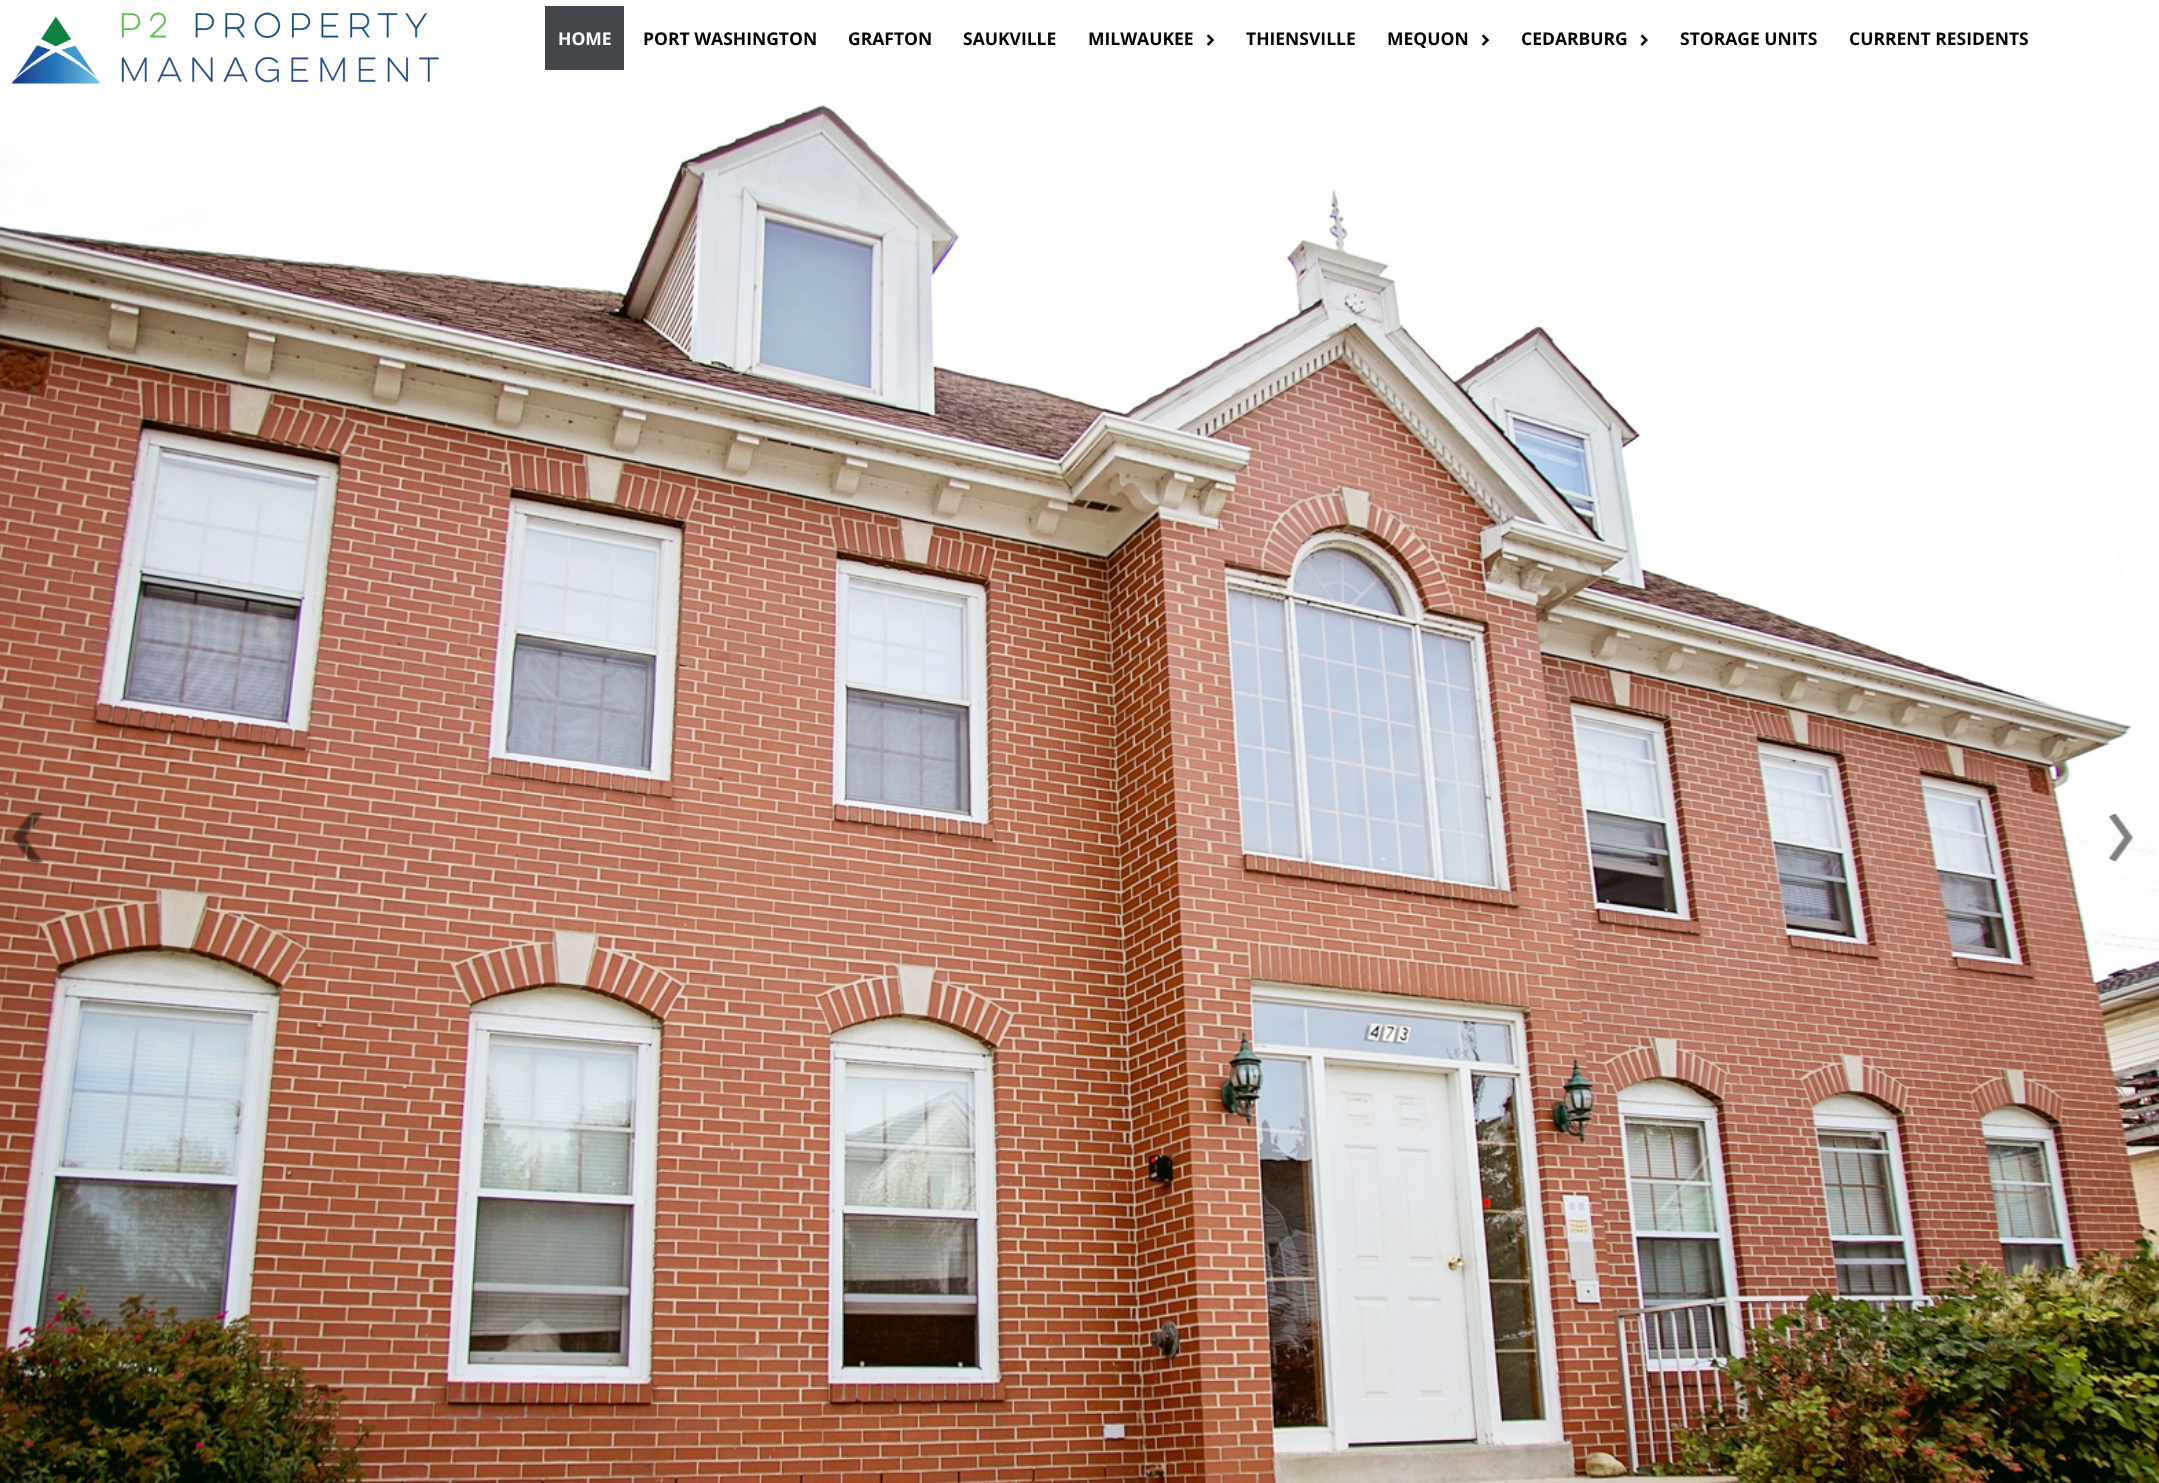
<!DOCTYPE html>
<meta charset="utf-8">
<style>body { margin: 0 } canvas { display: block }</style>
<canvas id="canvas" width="2159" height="1483"></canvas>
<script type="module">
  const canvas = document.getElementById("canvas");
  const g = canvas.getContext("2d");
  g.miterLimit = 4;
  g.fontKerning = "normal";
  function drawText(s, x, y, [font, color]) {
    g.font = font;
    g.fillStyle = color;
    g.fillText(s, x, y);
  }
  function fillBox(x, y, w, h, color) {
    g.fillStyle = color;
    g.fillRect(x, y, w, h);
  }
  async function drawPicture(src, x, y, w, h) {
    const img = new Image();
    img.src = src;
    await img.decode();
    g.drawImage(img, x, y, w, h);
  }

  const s1 = ["bold 17.5px Open Sans", "#FFFFFF"];
  const s2 = ["bold 17.5px Open Sans", "#000000"];

  fillBox(0, 0, 2159, 1483, "#FFFFFF");
  await drawPicture("pic1.png", 11, 12, 428, 72);
  fillBox(545, 6, 79, 64, "#43464B");
  drawText("HOME", 558, 45, s1);
  drawText("PORT WASHINGTON", 643, 45, s2);
  drawText("GRAFTON", 848, 45, s2);
  drawText("SAUKVILLE", 963, 45, s2);
  drawText("MILWAUKEE", 1088, 45, s2);
  await drawPicture("pic2.png", 1206, 34, 8, 12);
  drawText("THIENSVILLE", 1246, 45, s2);
  drawText("MEQUON", 1387, 45, s2);
  await drawPicture("pic2.png", 1481, 34, 8, 12);
  drawText("CEDARBURG", 1521, 45, s2);
  await drawPicture("pic3.png", 1640, 34, 8, 12);
  drawText("STORAGE UNITS", 1680, 45, s2);
  drawText("CURRENT RESIDENTS", 1849, 45, s2);
  await drawPicture("pic4.png", 0, 105, 2159, 1378);
  await drawPicture("pic5.png", 12, 812, 32, 51);
  await drawPicture("pic6.png", 2108, 813, 25, 49);
</script>
